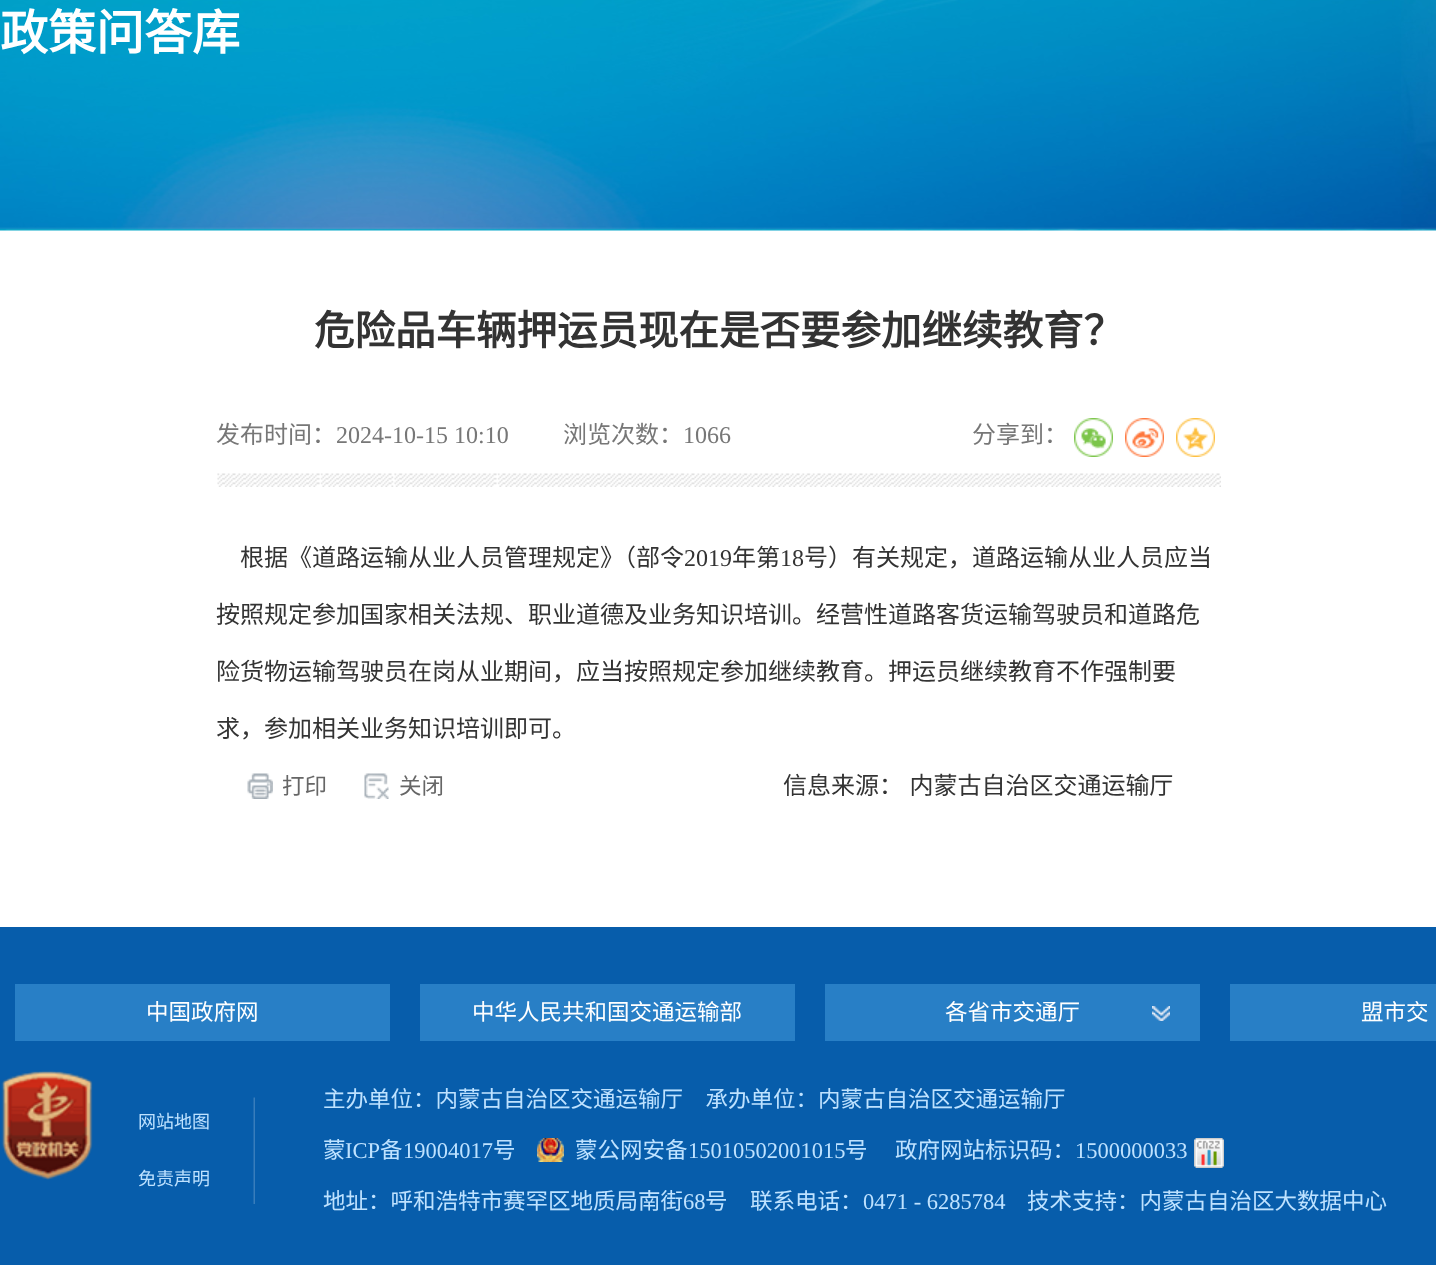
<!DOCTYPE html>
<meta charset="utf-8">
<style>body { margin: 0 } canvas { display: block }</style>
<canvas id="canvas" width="1436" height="1265"></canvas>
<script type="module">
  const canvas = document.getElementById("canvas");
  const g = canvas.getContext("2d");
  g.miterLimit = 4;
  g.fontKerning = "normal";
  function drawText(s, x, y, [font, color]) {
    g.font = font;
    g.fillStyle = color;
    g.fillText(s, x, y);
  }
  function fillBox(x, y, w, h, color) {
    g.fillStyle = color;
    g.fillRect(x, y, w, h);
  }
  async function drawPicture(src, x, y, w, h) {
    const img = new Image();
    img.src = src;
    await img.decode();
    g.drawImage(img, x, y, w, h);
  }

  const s1 = ["bold 48px Noto Sans CJK SC", "#FFFFFF"];
  const s2 = ["bold 40.5px Noto Sans CJK SC", "#333333"];
  const s3 = ["24px Noto Sans CJK SC", "#777777"];
  const s4 = ["24px Liberation Serif", "#777777"];
  const s5 = ["24px Noto Sans CJK SC", "#333333"];
  const s6 = ["24px Liberation Serif", "#333333"];
  const s7 = ["22.5px Noto Sans CJK SC", "#666666"];
  const s8 = ["22.5px Noto Sans CJK SC", "#FFFFFF"];
  const s9 = ["18px Noto Sans CJK SC", "#BEE2FF"];
  const s10 = ["22.5px Noto Sans CJK SC", "#BEE2FF"];
  const s11 = ["22.5px Liberation Serif", "#BEE2FF"];

  fillBox(0, 0, 1436, 1265, "#FFFFFF");
  await drawPicture("pic1.png", 0, 0, 1436, 231);
  drawText("政策问答库", 0, 50, s1);
  drawText("危险品车辆押运员现在是否要参加继续教育？", 314, 345, s2);
  drawText("发布时间：", 216, 443, s3);
  drawText("2024-10-15 10:10", 336, 443, s4);
  drawText("浏览次数：", 563, 443, s3);
  drawText("1066", 683, 443, s4);
  drawText("分享到：", 972, 443, s3);
  await drawPicture("pic2.png", 1074, 418, 39, 39);
  await drawPicture("pic3.png", 1125, 418, 39, 39);
  await drawPicture("pic4.png", 1176, 418, 39, 39);
  await drawPicture("pic5.png", 217, 473, 1004, 14);
  drawText("根据《道路运输从业人员管理规定》（部令", 240, 566, s5);
  drawText("2019", 684, 566, s6);
  drawText("年第", 732, 566, s5);
  drawText("18", 780, 566, s6);
  drawText("号）有关规定，道路运输从业人员应当", 804, 566, s5);
  drawText("按照规定参加国家相关法规、职业道德及业务知识培训。经营性道路客货运输驾驶员和道路危", 216, 623, s5);
  drawText("险货物运输驾驶员在岗从业期间，应当按照规定参加继续教育。押运员继续教育不作强制要", 216, 680, s5);
  drawText("求，参加相关业务知识培训即可。", 216, 737, s5);
  await drawPicture("pic6.png", 247, 773, 26, 26);
  drawText("打印", 282, 794, s7);
  await drawPicture("pic7.png", 364, 773, 25, 26);
  drawText("关闭", 399, 794, s7);
  g.wordSpacing = "1px";
  drawText("信息来源： 内蒙古自治区交通运输厅", 783, 794, s5);
  fillBox(0, 927, 1436, 338, "#075DAB");
  fillBox(15, 984, 375, 57, "#287FC6");
  g.wordSpacing = "0px";
  drawText("中国政府网", 146, 1020, s8);
  fillBox(420, 984, 375, 57, "#287FC6");
  drawText("中华人民共和国交通运输部", 472, 1020, s8);
  fillBox(825, 984, 375, 57, "#287FC6");
  drawText("各省市交通厅", 945, 1020, s8);
  await drawPicture("pic8.png", 1152, 1006, 18, 15);
  fillBox(1230, 984, 206, 57, "#287FC6");
  drawText("盟市交", 1361, 1020, s8);
  await drawPicture("pic9.png", 1, 1070, 92, 110);
  await drawPicture("pic10.png", 253, 1097, 2, 107);
  drawText("网站地图", 138, 1128, s9);
  drawText("免责声明", 138, 1185, s9);
  drawText("主办单位：内蒙古自治区交通运输厅　承办单位：内蒙古自治区交通运输厅", 323, 1107, s10);
  drawText("蒙", 323, 1158, s10);
  drawText("ICP", 345, 1158, s11);
  drawText("备", 380, 1158, s10);
  drawText("19004017", 403, 1158, s11);
  drawText("号", 493, 1158, s10);
  await drawPicture("pic11.png", 537, 1138, 27, 24);
  drawText("蒙公网安备", 575, 1158, s10);
  drawText("15010502001015", 688, 1158, s11);
  drawText("号", 845, 1158, s10);
  drawText("政府网站标识码：", 895, 1158, s10);
  drawText("1500000033", 1075, 1158, s11);
  await drawPicture("pic12.png", 1194, 1138, 30, 30);
  drawText("地址：呼和浩特市赛罕区地质局南街", 323, 1209, s10);
  drawText("68", 683, 1209, s11);
  drawText("号　联系电话：", 705, 1209, s10);
  drawText("0471 - 6285784", 863, 1209, s11);
  drawText("技术支持：内蒙古自治区大数据中心", 1027, 1209, s10);
</script>
